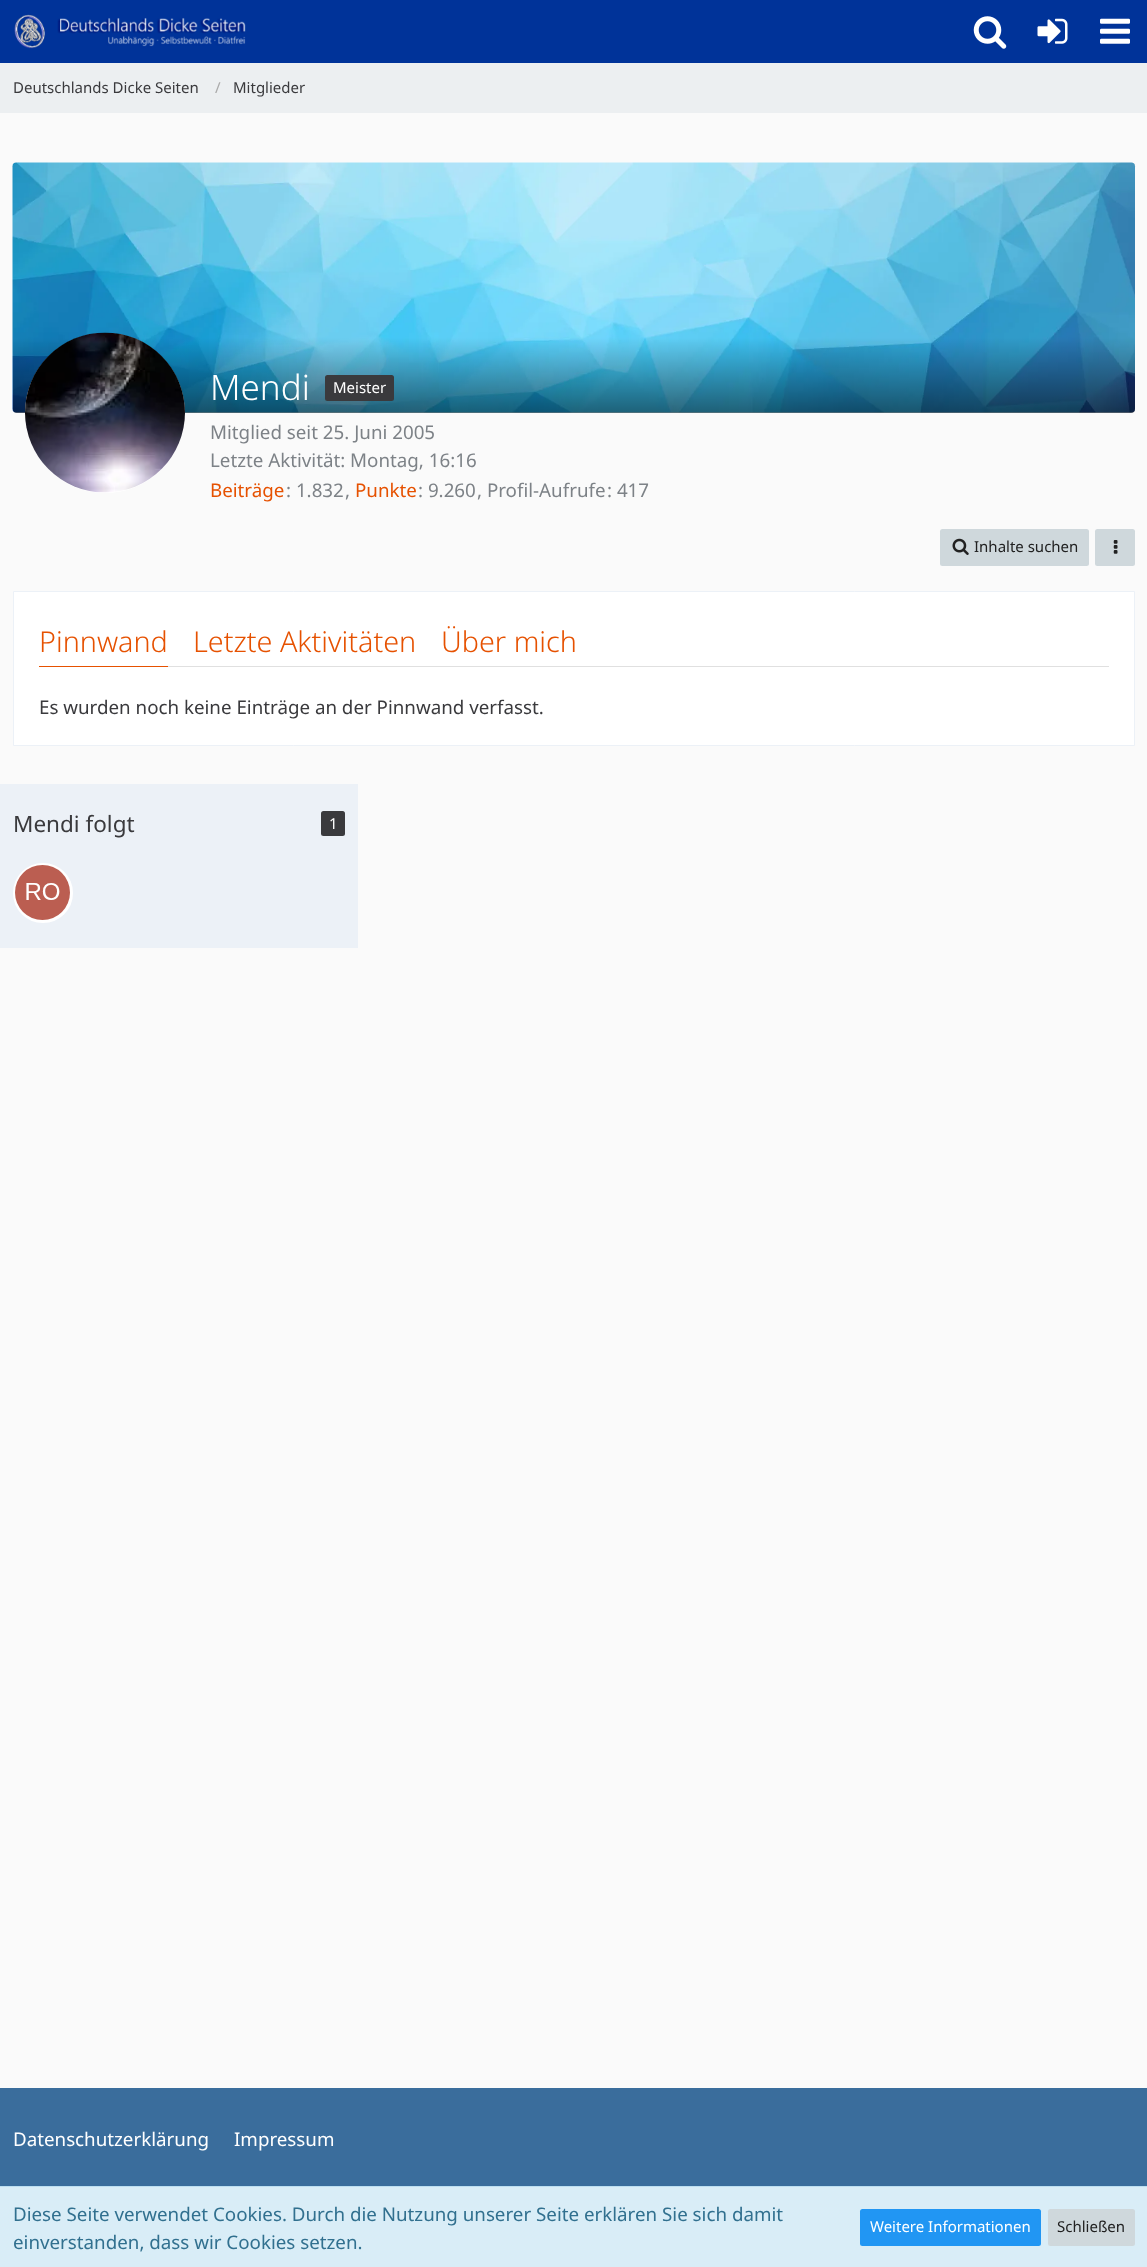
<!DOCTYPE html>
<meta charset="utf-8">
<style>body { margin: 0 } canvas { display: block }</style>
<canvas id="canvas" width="1147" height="2267"></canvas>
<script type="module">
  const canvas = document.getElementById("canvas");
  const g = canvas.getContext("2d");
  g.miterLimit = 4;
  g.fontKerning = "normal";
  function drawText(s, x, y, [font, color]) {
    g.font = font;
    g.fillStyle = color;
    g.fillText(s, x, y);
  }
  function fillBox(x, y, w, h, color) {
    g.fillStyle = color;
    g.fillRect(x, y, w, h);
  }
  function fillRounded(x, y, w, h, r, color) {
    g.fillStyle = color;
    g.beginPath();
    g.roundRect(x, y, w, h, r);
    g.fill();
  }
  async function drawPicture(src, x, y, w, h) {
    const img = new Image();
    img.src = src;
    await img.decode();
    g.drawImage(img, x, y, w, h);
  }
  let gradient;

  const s1 = ["15px Noto Sans", "#3A3A3D"];
  const s2 = ["15px Noto Sans", "#AAAAAA"];
  const s3 = ["300 35px Noto Sans", "#FFFFFF"];
  const s4 = ["15px Noto Sans", "#FFFFFF"];
  const s5 = ["18.75px Noto Sans", "#7D8287"];
  const s6 = ["18.75px Noto Sans", "#E65100"];
  const s7 = ["15px Noto Sans", "#212121"];
  const s8 = ["300 28.75px Noto Sans", "#E65100"];
  const s9 = ["18.75px Noto Sans", "#3A3A3D"];
  const s10 = ["22.5px Noto Sans", "#3A3A3D"];
  const s11 = ["18.75px Noto Sans", "#FFFFFF"];
  const s12 = ["18.75px Noto Sans", "#31708F"];

  fillBox(0, 0, 1147, 2267, "#FAFAFA");
  fillBox(0, 0, 1147, 63, "#003399");
  await drawPicture("pic1.png", 14, 14, 232, 35);
  await drawPicture("pic2.png", 973, 16, 34, 33);
  await drawPicture("pic3.png", 1037, 18, 31, 26);
  await drawPicture("pic4.png", 1100, 18, 30, 26);
  fillBox(0, 63, 1147, 50, "#ECEFF1");
  drawText("Deutschlands Dicke Seiten", 13, 93, s1);
  drawText("/", 215, 93, s2);
  drawText("Mitglieder", 233, 93, s1);
  await drawPicture("pic5.png", 12, 162, 1124, 251);
  gradient = g.createLinearGradient(574, 162, 574, 413);
  gradient.addColorStop(0.7, "rgba(0, 0, 0, 0)");
  gradient.addColorStop(1, "rgba(0, 0, 0, 0.5)");
  g.fillStyle = gradient;
  g.beginPath();
  g.roundRect(13, 163, 1122, 250, [0, 0, 4, 4]);
  g.fill();
  g.fillStyle = "#FFFFFF";
  g.beginPath();
  g.arc(105, 413, 80, 0, Math.PI * 2);
  g.fill();
  await drawPicture("pic6.png", 25, 332, 160, 161);
  drawText("Mendi", 210, 400, s3);
  fillRounded(325, 375, 69, 26, 2.5, "#3A3A3D");
  drawText("Meister", 333, 393, s4);
  drawText("Mitglied seit 25. Juni 2005", 210, 439, s5);
  drawText("Letzte Aktivität: Montag, 16:16", 210, 467, s5);
  drawText("Beiträge", 210, 497, s6);
  drawText(": 1.832", 286, 497, s5);
  drawText(",", 345, 497, s5);
  drawText("Punkte", 355, 497, s6);
  drawText(": 9.260", 418, 497, s5);
  drawText(", Profil-Aufrufe", 477, 497, s5);
  drawText(": 417", 607, 497, s5);
  fillRounded(940, 529, 149, 37, 2.5, "#CFD8DC");
  await drawPicture("pic7.png", 952, 538, 17, 17);
  drawText("Inhalte suchen", 974, 552, s7);
  fillRounded(1095, 529, 40, 37, 2.5, "#CFD8DC");
  await drawPicture("pic8.png", 1113, 540, 5, 14);
  g.fillStyle = "#FFFFFF";
  g.beginPath();
  g.rect(13.5, 591.5, 1121, 154);
  g.fill();
  g.strokeStyle = "#ECF1F7";
  g.stroke();
  fillBox(168, 666, 941, 1, "#E0E0E0");
  drawText("Pinnwand", 39, 652, s8);
  fillBox(39, 666, 129, 1, "#E65100");
  drawText("Letzte Aktivitäten", 193, 652, s8);
  drawText("Über mich", 441, 652, s8);
  drawText("Es wurden noch keine Einträge an der Pinnwand verfasst.", 39, 714, s9);
  fillBox(0, 784, 358, 164, "#ECF1F7");
  drawText("Mendi folgt", 13, 832, s10);
  fillRounded(321, 811, 24, 25, 2.5, "#3A3A3D");
  drawText("1", 329, 829, s4);
  g.beginPath();
  g.arc(43, 893, 28.5, 0, Math.PI * 2);
  g.fill();
  g.strokeStyle = "#FFFFFF";
  g.lineWidth = 3;
  g.stroke();
  await drawPicture("pic9.png", 15, 865, 55, 55);
  fillBox(0, 2088, 1147, 98, "#3A6D9C");
  drawText("Datenschutzerklärung", 13, 2146, s11);
  drawText("Impressum", 234, 2146, s11);
  fillBox(0, 2187, 1147, 80, "#D9EDF7");
  fillBox(0, 2186, 1147, 1, "#BCDFF1");
  drawText("Diese Seite verwendet Cookies. Durch die Nutzung unserer Seite erklären Sie sich damit", 13, 2221, s12);
  drawText("einverstanden, dass wir Cookies setzen.", 13, 2249, s12);
  fillRounded(860, 2209, 181, 37, 2.5, "#2196F3");
  drawText("Weitere Informationen", 870, 2232, s4);
  fillRounded(1048, 2209, 87, 37, 2.5, "#CFD8DC");
  drawText("Schließen", 1057, 2232, s7);
</script>
